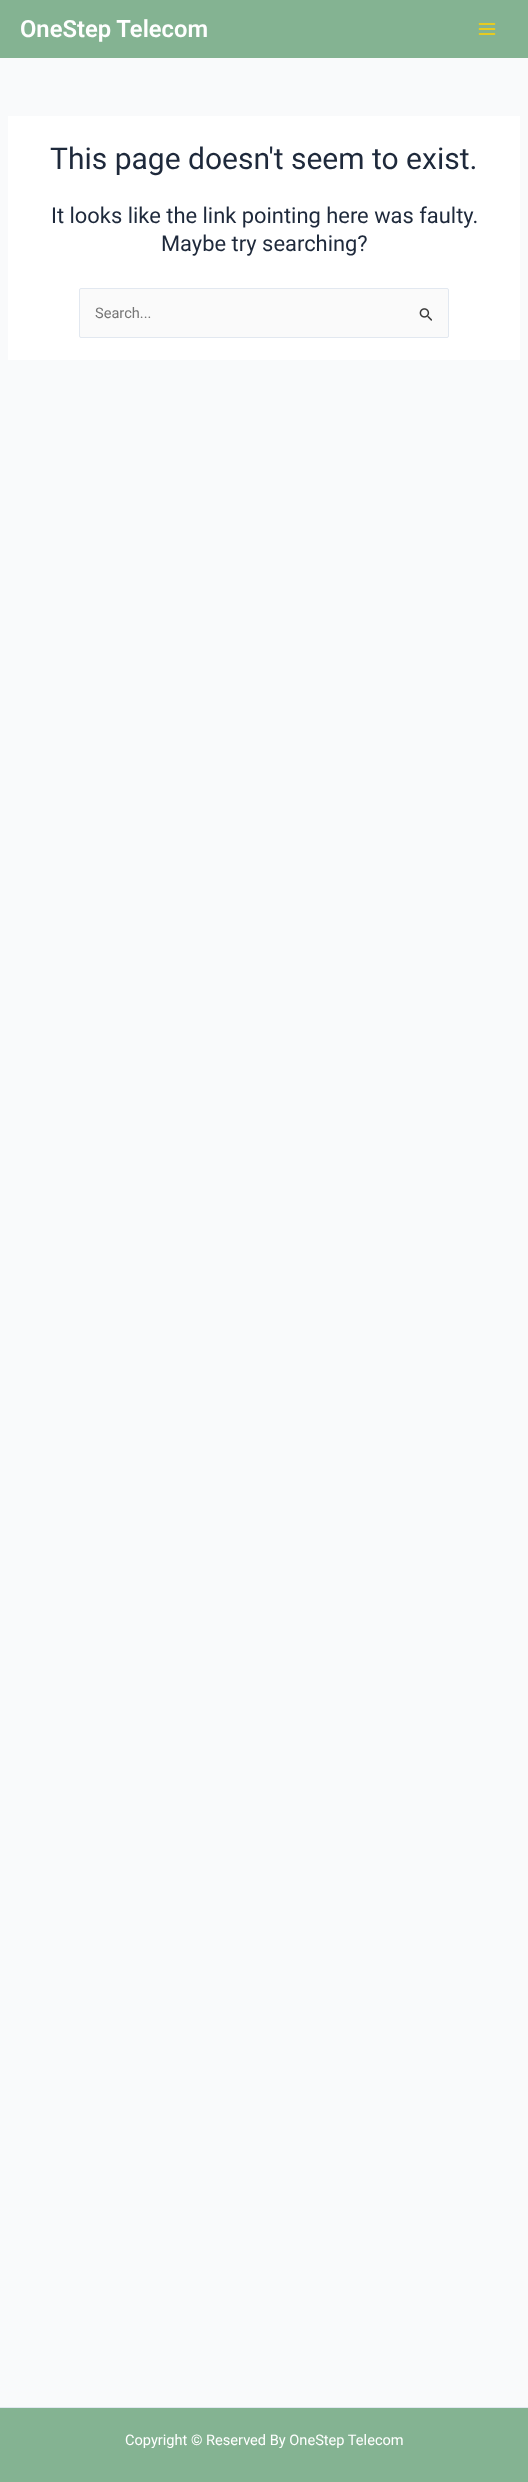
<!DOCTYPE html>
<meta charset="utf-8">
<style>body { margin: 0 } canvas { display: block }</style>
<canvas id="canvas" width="528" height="2482"></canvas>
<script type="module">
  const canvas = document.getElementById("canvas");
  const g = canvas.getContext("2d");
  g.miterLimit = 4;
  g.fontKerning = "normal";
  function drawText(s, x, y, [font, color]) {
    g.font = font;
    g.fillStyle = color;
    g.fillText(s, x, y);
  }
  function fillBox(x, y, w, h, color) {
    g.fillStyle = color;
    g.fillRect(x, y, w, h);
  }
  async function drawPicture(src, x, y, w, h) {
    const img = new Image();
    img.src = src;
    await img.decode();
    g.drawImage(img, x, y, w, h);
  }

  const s1 = ["600 23.75px Roboto", "#FFFFFF"];
  const s2 = ["30px Roboto", "#1E293B"];
  const s3 = ["21.9px Roboto", "#1E293B"];
  const s4 = ["14.6px Roboto", "#757575"];
  const s5 = ["14.6px Roboto", "#FFFFFF"];

  fillBox(0, 0, 528, 2482, "#F9FAFB");
  fillBox(0, 0, 528, 58, "#84B392");
  drawText("OneStep Telecom", 20, 37, s1);
  await drawPicture("pic1.png", 478, 23, 18, 12);
  fillBox(8, 116, 512, 244, "#FFFFFF");
  drawText("This page doesn't seem to exist.", 50, 169, s2);
  drawText("It looks like the link pointing here was faulty.", 51, 223, s3);
  drawText("Maybe try searching?", 161, 251, s3);
  g.fillStyle = "#FAFAFA";
  g.beginPath();
  g.roundRect(79.5, 288.5, 369, 49, 1.5);
  g.fill();
  g.strokeStyle = "#E2E8F0";
  g.stroke();
  drawText("Search...", 95, 318, s4);
  await drawPicture("pic2.png", 419, 308, 13, 13);
  fillBox(0, 2408, 528, 74, "#84B392");
  fillBox(0, 2407, 528, 1, "#E2E8F0");
  drawText("Copyright © Reserved By OneStep Telecom", 125, 2445, s5);
</script>
